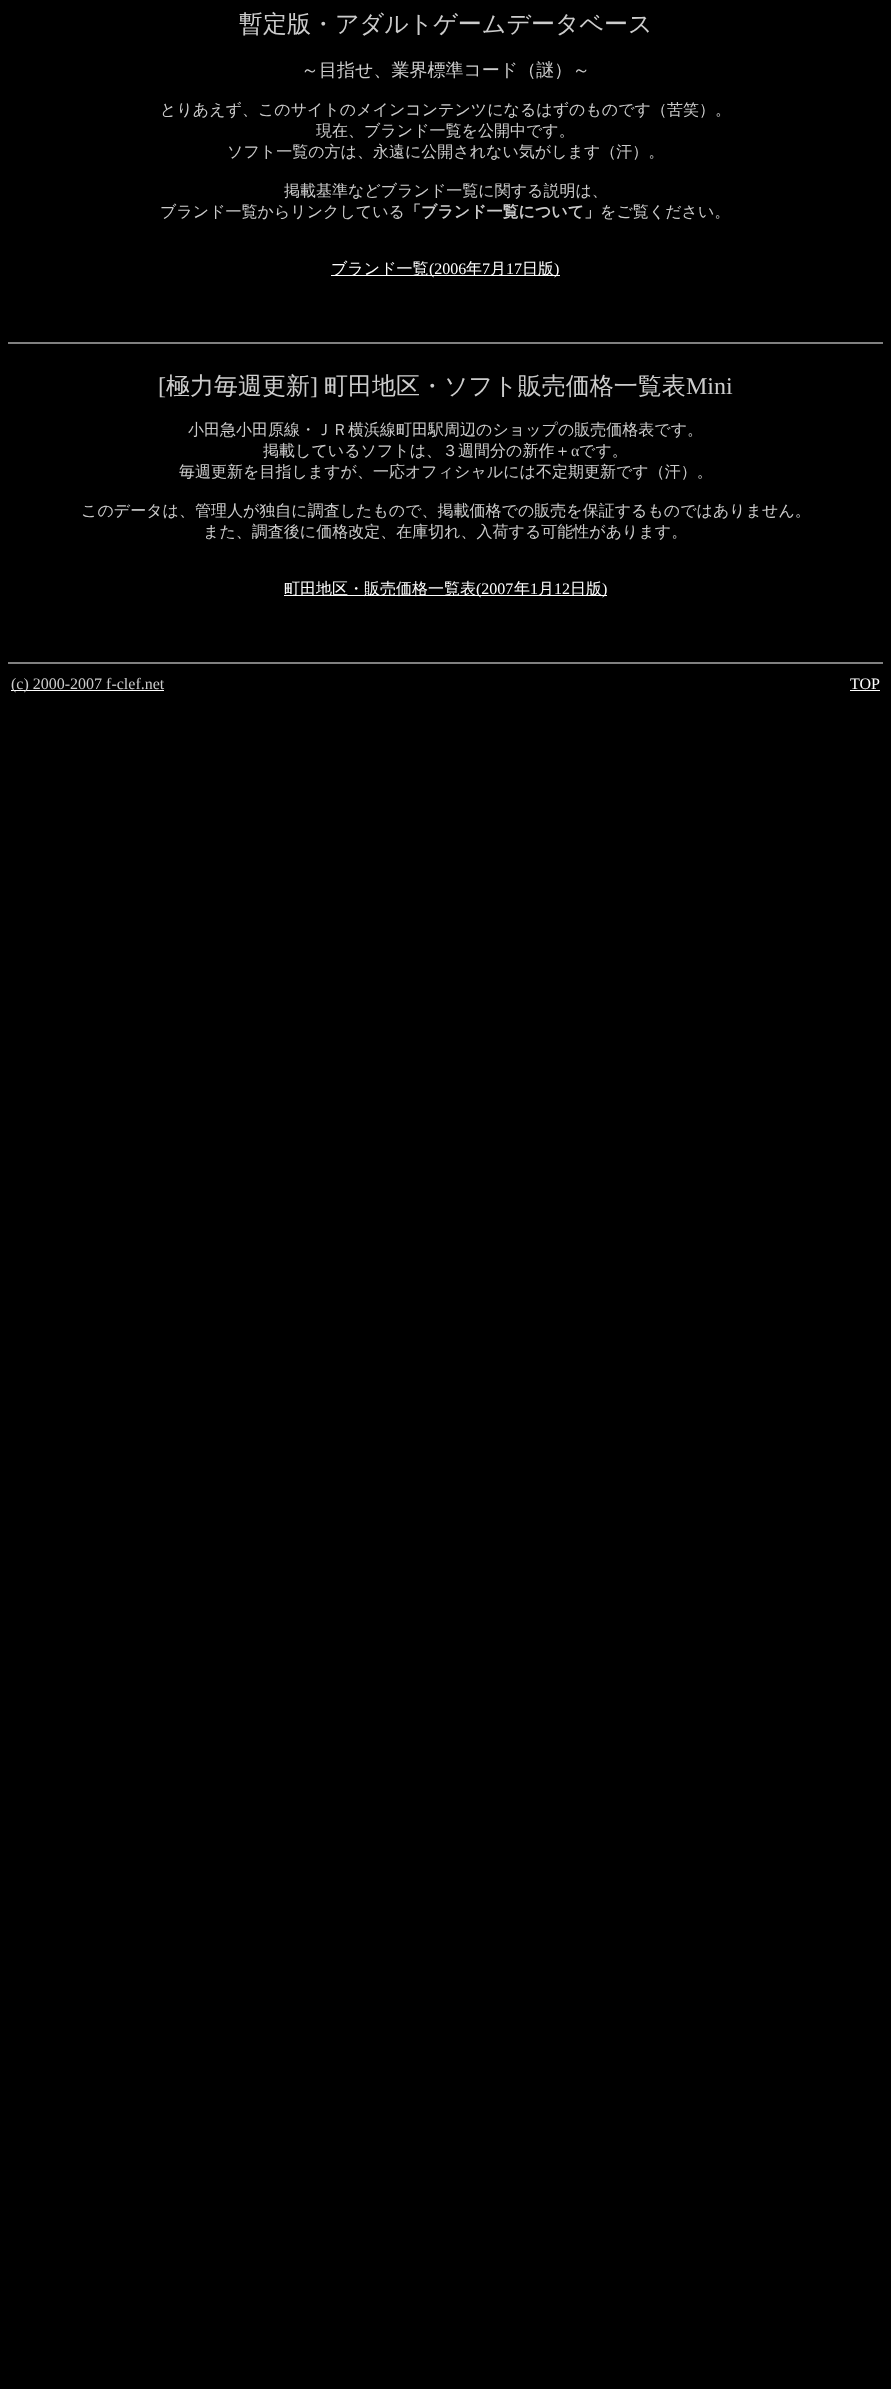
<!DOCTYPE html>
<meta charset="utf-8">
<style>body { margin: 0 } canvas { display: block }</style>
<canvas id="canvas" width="891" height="2389"></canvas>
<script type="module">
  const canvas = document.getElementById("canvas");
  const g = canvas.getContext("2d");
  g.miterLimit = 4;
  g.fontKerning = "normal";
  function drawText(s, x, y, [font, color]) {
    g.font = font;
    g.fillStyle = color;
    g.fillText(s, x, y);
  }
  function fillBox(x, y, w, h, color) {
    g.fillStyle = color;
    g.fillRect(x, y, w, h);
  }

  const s1 = ["500 24px WenQuanYi Zen Hei", "#CCCCCC"];
  const s2 = ["500 18px WenQuanYi Zen Hei", "#CCCCCC"];
  const s3 = ["500 16px WenQuanYi Zen Hei", "#CCCCCC"];
  const s4 = ["bold 16px WenQuanYi Zen Hei", "#CCCCCC"];
  const s5 = ["500 16px WenQuanYi Zen Hei", "#FFFFFF"];
  const s6 = ["16px Liberation Serif", "#FFFFFF"];
  const s7 = ["24px Liberation Serif", "#CCCCCC"];
  const s8 = ["16px Liberation Serif", "#CCCCCC"];

  fillBox(0, 0, 891, 2389, "#000000");
  drawText("暫定版・アダルトゲームデータベース", 239, 32, s1);
  drawText("～目指せ、業界標準コード（謎）～", 301, 76, s2);
  drawText("とりあえず、このサイトのメインコンテンツになるはずのものです（苦笑）。", 160, 115, s3);
  drawText("現在、ブランド一覧を公開中です。", 316, 136, s3);
  drawText("ソフト一覧の方は、永遠に公開されない気がします（汗）。", 227, 157, s3);
  drawText("掲載基準などブランド一覧に関する説明は、", 284, 196, s3);
  drawText("ブランド一覧からリンクしている", 160, 217, s3);
  drawText("「ブランド一覧について」", 405, 217, s4);
  drawText("をご覧ください。", 600, 217, s3);
  fillBox(331, 275, 229, 1, "#FFFFFF");
  drawText("ブランド一覧", 331, 274, s5);
  drawText("(2006", 429, 274, s6);
  drawText("年", 466, 274, s5);
  drawText("7", 482, 274, s6);
  drawText("月", 490, 274, s5);
  drawText("17", 506, 274, s6);
  drawText("日版", 522, 274, s5);
  drawText(")", 554, 274, s6);
  fillBox(8, 342, 875, 2, "#808080");
  drawText("[", 158, 394, s7);
  drawText("極力毎週更新", 166, 394, s1);
  drawText("]", 310, 394, s7);
  drawText("町田地区・ソフト販売価格一覧表", 324, 394, s1);
  drawText("Mini", 686, 394, s7);
  drawText("小田急小田原線・ＪＲ横浜線町田駅周辺のショップの販売価格表です。", 188, 435, s3);
  drawText("掲載しているソフトは、３週間分の新作＋", 263, 456, s3);
  drawText("α", 571, 456, s8);
  drawText("です。", 579, 456, s3);
  drawText("毎週更新を目指しますが、一応オフィシャルには不定期更新です（汗）。", 179, 477, s3);
  drawText("このデータは、管理人が独自に調査したもので、掲載価格での販売を保証するものではありません。", 81, 516, s3);
  drawText("また、調査後に価格改定、在庫切れ、入荷する可能性があります。", 203, 537, s3);
  fillBox(284, 595, 323, 1, "#FFFFFF");
  drawText("町田地区・販売価格一覧表", 284, 594, s5);
  drawText("(2007", 476, 594, s6);
  drawText("年", 514, 594, s5);
  drawText("1", 530, 594, s6);
  drawText("月", 538, 594, s5);
  drawText("12", 554, 594, s6);
  drawText("日版", 570, 594, s5);
  drawText(")", 602, 594, s6);
  fillBox(8, 662, 875, 2, "#808080");
  fillBox(11, 690, 153, 1, "#FFFFFF");
  drawText("(c) 2000-2007 f-clef.net", 11, 689, s8);
  drawText("TOP", 850, 689, s6);
  fillBox(850, 690, 30, 1, "#FFFFFF");
</script>
